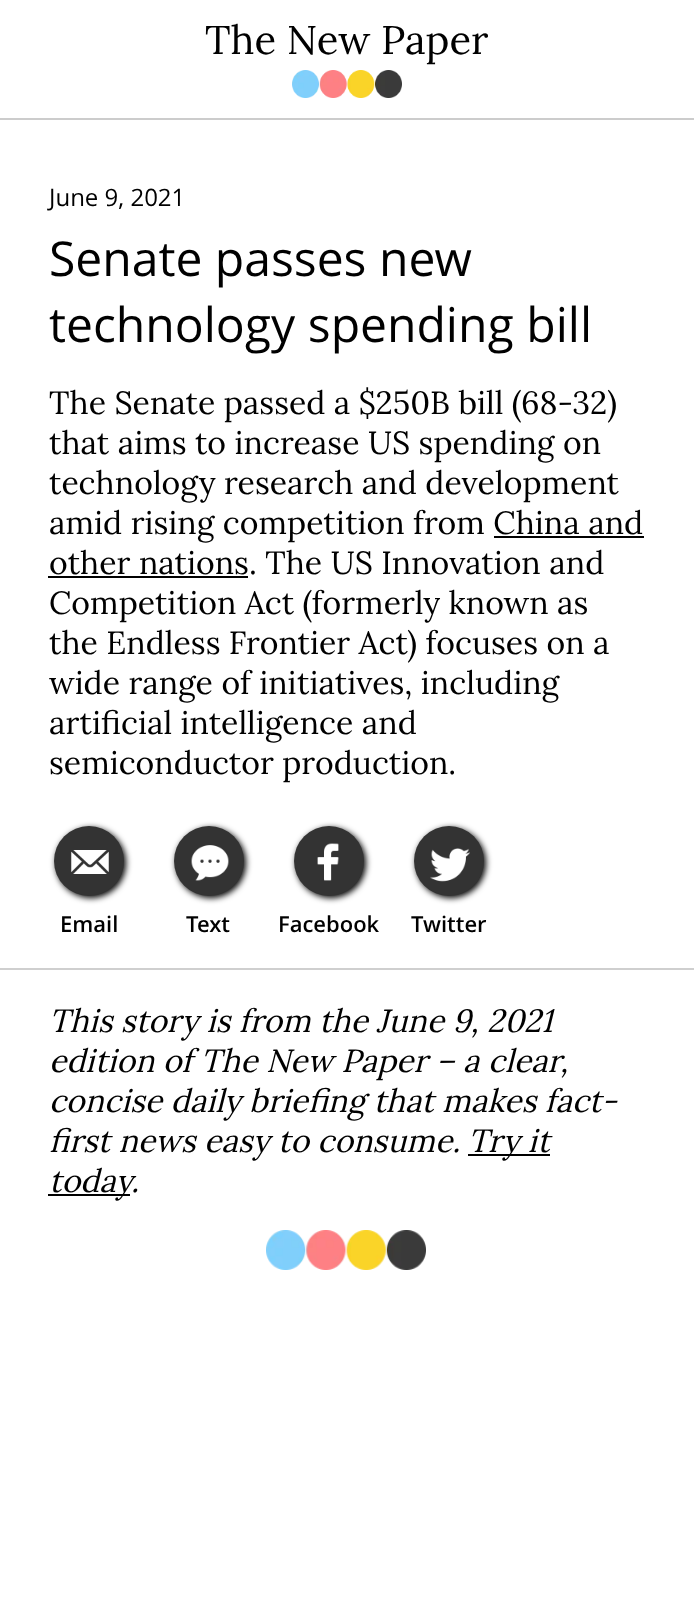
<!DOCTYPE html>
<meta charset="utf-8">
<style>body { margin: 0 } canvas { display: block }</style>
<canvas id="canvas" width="694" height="1616"></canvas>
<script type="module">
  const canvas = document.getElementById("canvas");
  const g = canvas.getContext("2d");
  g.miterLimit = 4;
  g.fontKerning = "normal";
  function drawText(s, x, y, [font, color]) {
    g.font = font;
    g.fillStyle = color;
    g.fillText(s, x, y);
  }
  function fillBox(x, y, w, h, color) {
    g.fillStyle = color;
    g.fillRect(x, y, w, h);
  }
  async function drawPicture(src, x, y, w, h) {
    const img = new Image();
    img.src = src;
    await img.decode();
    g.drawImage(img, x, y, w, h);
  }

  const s1 = ["40px Lora", "#000000"];
  const s2 = ["24px Open Sans", "#000000"];
  const s3 = ["48px Open Sans", "#000000"];
  const s4 = ["32px Lora", "#000000"];
  const s5 = ["600 22px Open Sans", "#000000"];
  const s6 = ["italic 32px Lora", "#000000"];

  fillBox(0, 0, 694, 1616, "#FFFFFF");
  drawText("The New Paper", 205, 54, s1);
  await drawPicture("pic1.png", 292, 70, 110, 28);
  fillBox(0, 118, 694, 2, "#CCCCCC");
  drawText("June 9, 2021", 49, 206, s2);
  drawText("Senate passes new", 49, 276, s3);
  drawText("technology spending bill", 49, 342, s3);
  drawText("The Senate passed a $250B bill (68-32)", 49, 414, s4);
  drawText("that aims to increase US spending on", 49, 454, s4);
  drawText("technology research and development", 49, 494, s4);
  drawText("amid rising competition from China and", 49, 534, s4);
  drawText("other nations. The US Innovation and", 49, 574, s4);
  fillBox(494, 536, 150, 2, "#000000");
  fillBox(48, 576, 200, 2, "#000000");
  drawText("Competition Act (formerly known as", 49, 614, s4);
  drawText("the Endless Frontier Act) focuses on a", 49, 654, s4);
  drawText("wide range of initiatives, including", 49, 694, s4);
  drawText("artificial intelligence and", 49, 734, s4);
  drawText("semiconductor production.", 49, 774, s4);
  g.filter = "blur(3px)";
  g.beginPath();
  g.roundRect(56, 828, 70, 70, 35);
  g.fill();
  g.filter = "none";
  g.fillStyle = "#333333";
  g.beginPath();
  g.arc(89, 861, 35, 0, Math.PI * 2);
  g.fill();
  await drawPicture("pic2.png", 71, 850, 38, 24);
  drawText("Email", 60, 932, s5);
  g.filter = "blur(3px)";
  g.beginPath();
  g.roundRect(176, 828, 70, 70, 35);
  g.fill();
  g.filter = "none";
  g.fillStyle = "#333333";
  g.beginPath();
  g.arc(209, 861, 35, 0, Math.PI * 2);
  g.fill();
  await drawPicture("pic3.png", 191, 845, 38, 36);
  drawText("Text", 186, 932, s5);
  g.filter = "blur(3px)";
  g.beginPath();
  g.roundRect(296, 828, 70, 70, 35);
  g.fill();
  g.filter = "none";
  g.fillStyle = "#333333";
  g.beginPath();
  g.arc(329, 861, 35, 0, Math.PI * 2);
  g.fill();
  await drawPicture("pic4.png", 317, 843, 22, 38);
  drawText("Facebook", 278, 932, s5);
  g.filter = "blur(3px)";
  g.beginPath();
  g.roundRect(416, 828, 70, 70, 35);
  g.fill();
  g.filter = "none";
  g.fillStyle = "#333333";
  g.beginPath();
  g.arc(449, 861, 35, 0, Math.PI * 2);
  g.fill();
  await drawPicture("pic5.png", 430, 848, 40, 34);
  drawText("Twitter", 411, 932, s5);
  fillBox(0, 968, 694, 2, "#CFCFCF");
  drawText("This story is from the June 9, 2021", 49, 1032, s6);
  drawText("edition of The New Paper – a clear,", 49, 1072, s6);
  drawText("concise daily briefing that makes fact-", 49, 1112, s6);
  drawText("first news easy to consume.", 49, 1152, s6);
  fillBox(468, 1154, 82, 2, "#000000");
  drawText("Try it", 468, 1152, s6);
  fillBox(48, 1194, 82, 2, "#000000");
  drawText("today", 49, 1192, s6);
  drawText(".", 131, 1192, s6);
  await drawPicture("pic6.png", 266, 1230, 160, 40);
</script>
